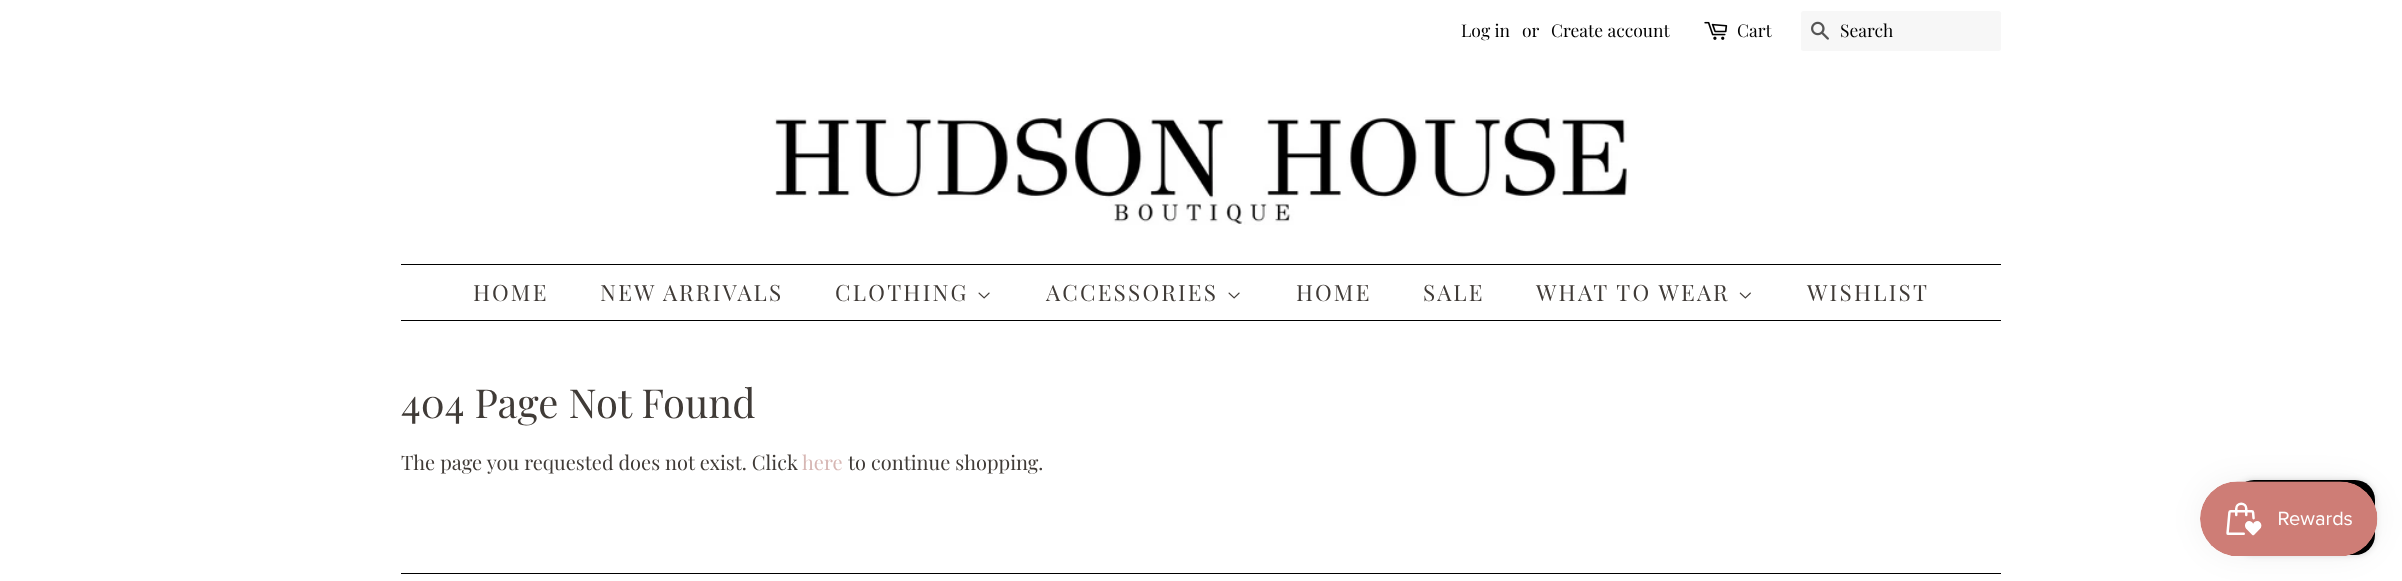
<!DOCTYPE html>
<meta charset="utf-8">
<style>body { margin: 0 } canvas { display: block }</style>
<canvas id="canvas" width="2402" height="581"></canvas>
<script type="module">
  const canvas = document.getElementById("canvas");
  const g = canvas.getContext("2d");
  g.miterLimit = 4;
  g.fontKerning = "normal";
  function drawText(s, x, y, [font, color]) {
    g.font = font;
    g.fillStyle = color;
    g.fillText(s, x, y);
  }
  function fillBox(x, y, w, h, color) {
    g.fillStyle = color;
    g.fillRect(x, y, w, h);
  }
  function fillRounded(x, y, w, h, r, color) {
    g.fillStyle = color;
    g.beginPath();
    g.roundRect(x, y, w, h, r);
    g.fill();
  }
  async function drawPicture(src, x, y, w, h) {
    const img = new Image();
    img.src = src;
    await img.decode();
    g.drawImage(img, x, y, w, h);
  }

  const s1 = ["17.5px Playfair Display", "#000000"];
  const s2 = ["22.5px Playfair Display", "#403B37"];
  const s3 = ["40px Playfair Display", "#403B37"];
  const s4 = ["20px Playfair Display", "#403B37"];
  const s5 = ["20px Playfair Display", "#D7B7B4"];

  fillBox(0, 0, 2402, 581, "#FFFFFF");
  drawText("Log in", 1461, 37, s1);
  drawText("or", 1522, 37, s1);
  drawText("Create account", 1551, 37, s1);
  await drawPicture("pic1.png", 1704, 21, 24, 19);
  drawText("Cart", 1737, 37, s1);
  fillRounded(1801, 11, 200, 40, 2.5, "#F7F7F7");
  await drawPicture("pic2.png", 1811, 21, 18, 19);
  drawText("Search", 1840, 37, s1);
  await drawPicture("pic3.png", 774, 117, 855, 108);
  fillBox(401, 264, 1600, 1, "#000000");
  fillBox(401, 320, 1600, 1, "#000000");
  g.letterSpacing = "2.25px";
  drawText("HOME", 473, 301, s2);
  drawText("NEW ARRIVALS", 600, 301, s2);
  drawText("CLOTHING", 835, 301, s2);
  await drawPicture("pic4.png", 978, 292, 12, 7);
  drawText("ACCESSORIES", 1046, 301, s2);
  await drawPicture("pic4.png", 1228, 292, 12, 7);
  drawText("HOME", 1296, 301, s2);
  drawText("SALE", 1423, 301, s2);
  drawText("WHAT TO WEAR", 1536, 301, s2);
  await drawPicture("pic5.png", 1739, 292, 12, 7);
  drawText("WISHLIST", 1807, 301, s2);
  g.letterSpacing = "0px";
  drawText("404 Page Not Found", 401, 418, s3);
  drawText("The page you requested does not exist. Click", 401, 470, s4);
  drawText("here", 802, 470, s5);
  drawText("to continue shopping.", 848, 470, s4);
  fillBox(401, 573, 1600, 1, "#000000");
  g.fillStyle = "rgba(0, 0, 0, 0.15)";
  g.filter = "blur(3px)";
  g.beginPath();
  g.roundRect(2234, 480, 141, 75, 20);
  g.fill();
  g.filter = "none";
  fillRounded(2234, 480, 141, 75, 20, "#000000");
  g.fillStyle = "rgba(0, 0, 0, 0.05)";
  g.filter = "blur(15.5px)";
  g.beginPath();
  g.roundRect(2200, 481, 178, 75, 37.5);
  g.fill();
  g.filter = "none";
  await drawPicture("pic6.png", 2200, 481, 178, 75);
</script>
